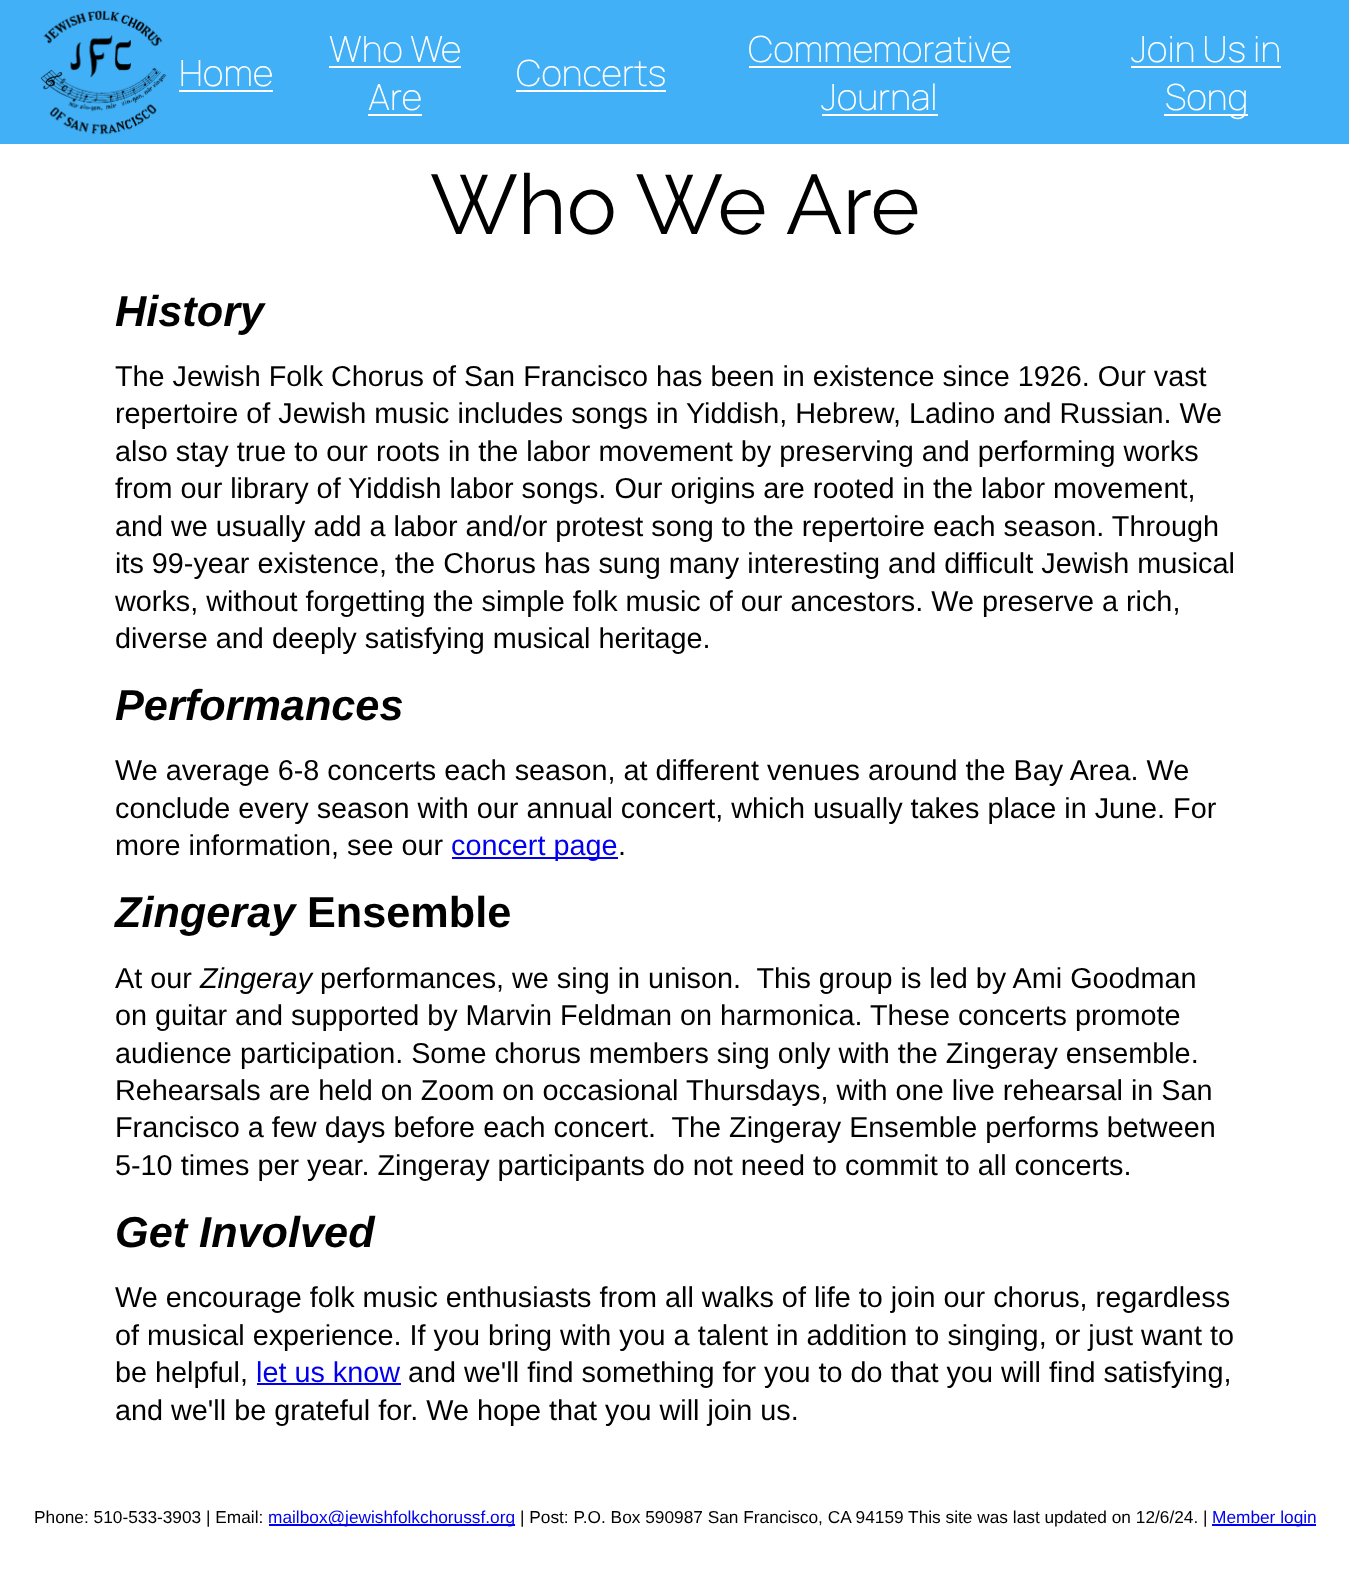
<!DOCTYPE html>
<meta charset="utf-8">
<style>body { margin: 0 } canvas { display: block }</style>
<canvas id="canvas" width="1349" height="1575"></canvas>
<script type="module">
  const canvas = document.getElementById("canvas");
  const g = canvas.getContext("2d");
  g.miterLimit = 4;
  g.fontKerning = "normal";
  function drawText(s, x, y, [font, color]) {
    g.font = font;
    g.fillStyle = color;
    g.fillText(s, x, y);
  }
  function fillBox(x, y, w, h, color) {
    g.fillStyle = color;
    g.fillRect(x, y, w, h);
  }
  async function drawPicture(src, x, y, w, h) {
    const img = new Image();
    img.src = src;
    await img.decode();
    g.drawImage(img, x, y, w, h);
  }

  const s1 = ["200 36px Manrope", "#FFFFFF"];
  const s2 = ["84px Raleway", "#000000"];
  const s3 = ["italic bold 43.25px Liberation Sans", "#000000"];
  const s4 = ["28.8px Liberation Sans", "#000000"];
  const s5 = ["28.8px Liberation Sans", "#0000EE"];
  const s6 = ["bold 43.25px Liberation Sans", "#000000"];
  const s7 = ["italic 28.8px Liberation Sans", "#000000"];
  const s8 = ["17.3px Liberation Sans", "#000000"];
  const s9 = ["17.3px Liberation Sans", "#0000EE"];

  fillBox(0, 0, 1349, 1575, "#FFFFFF");
  fillBox(0, 0, 1349, 144, "#41B0F6");
  await drawPicture("pic1.png", 40, 10, 127, 125);
  drawText("Home", 179, 86, s1);
  fillBox(179, 90, 94, 2, "#FFFFFF");
  drawText("Who We", 329, 62, s1);
  fillBox(329, 66, 132, 2, "#FFFFFF");
  drawText("Are", 368, 110, s1);
  fillBox(368, 114, 54, 2, "#FFFFFF");
  drawText("Concerts", 516, 86, s1);
  fillBox(516, 90, 150, 2, "#FFFFFF");
  drawText("Commemorative", 748, 62, s1);
  fillBox(749, 66, 262, 2, "#FFFFFF");
  drawText("Journal", 821, 110, s1);
  fillBox(822, 114, 116, 2, "#FFFFFF");
  drawText("Join Us in", 1131, 62, s1);
  fillBox(1131, 66, 150, 2, "#FFFFFF");
  fillBox(1164, 114, 84, 2, "#FFFFFF");
  drawText("Song", 1165, 110, s1);
  drawText("Who We Are", 430, 234, s2);
  drawText("History", 115, 326, s3);
  drawText("The Jewish Folk Chorus of San Francisco has been in existence since 1926. Our vast", 115, 386, s4);
  drawText("repertoire of Jewish music includes songs in Yiddish, Hebrew, Ladino and Russian. We", 115, 423, s4);
  drawText("also stay true to our roots in the labor movement by preserving and performing works", 115, 461, s4);
  drawText("from our library of Yiddish labor songs. Our origins are rooted in the labor movement,", 115, 498, s4);
  drawText("and we usually add a labor and/or protest song to the repertoire each season. Through", 115, 536, s4);
  drawText("its 99-year existence, the Chorus has sung many interesting and difficult Jewish musical", 115, 573, s4);
  drawText("works, without forgetting the simple folk music of our ancestors. We preserve a rich,", 115, 611, s4);
  drawText("diverse and deeply satisfying musical heritage.", 115, 648, s4);
  drawText("Performances", 115, 720, s3);
  drawText("We average 6-8 concerts each season, at different venues around the Bay Area. We", 115, 780, s4);
  drawText("conclude every season with our annual concert, which usually takes place in June. For", 115, 818, s4);
  drawText("more information, see our", 115, 855, s4);
  fillBox(452, 857, 166, 2, "#0000EE");
  drawText("concert page", 451, 855, s5);
  drawText(".", 618, 855, s4);
  drawText("Zingeray", 115, 927, s3);
  drawText("Ensemble", 307, 927, s6);
  drawText("At our", 115, 988, s4);
  drawText("Zingeray", 200, 988, s7);
  drawText("performances, we sing in unison.  This group is led by Ami Goodman", 320, 988, s4);
  drawText("on guitar and supported by Marvin Feldman on harmonica. These concerts promote", 115, 1025, s4);
  drawText("audience participation. Some chorus members sing only with the Zingeray ensemble.", 115, 1063, s4);
  drawText("Rehearsals are held on Zoom on occasional Thursdays, with one live rehearsal in San", 115, 1100, s4);
  drawText("Francisco a few days before each concert.  The Zingeray Ensemble performs between", 115, 1137, s4);
  drawText("5-10 times per year. Zingeray participants do not need to commit to all concerts.", 115, 1175, s4);
  drawText("Get Involved", 115, 1247, s3);
  drawText("We encourage folk music enthusiasts from all walks of life to join our chorus, regardless", 115, 1307, s4);
  drawText("of musical experience. If you bring with you a talent in addition to singing, or just want to", 115, 1345, s4);
  drawText("be helpful,", 115, 1382, s4);
  drawText("let us know", 256, 1382, s5);
  fillBox(257, 1383, 144, 2, "#0000EE");
  drawText("and we'll find something for you to do that you will find satisfying,", 408, 1382, s4);
  drawText("and we'll be grateful for. We hope that you will join us.", 115, 1420, s4);
  drawText("Phone: 510-533-3903 | Email:", 34, 1523, s8);
  fillBox(269, 1524, 246, 2, "#0000EE");
  drawText("mailbox@jewishfolkchorussf.org", 268, 1523, s9);
  drawText("| Post: P.O. Box 590987 San Francisco, CA 94159 This site was last updated on 12/6/24. |", 520, 1523, s8);
  fillBox(1212, 1524, 104, 2, "#0000EE");
  drawText("Member login", 1212, 1523, s9);
</script>
